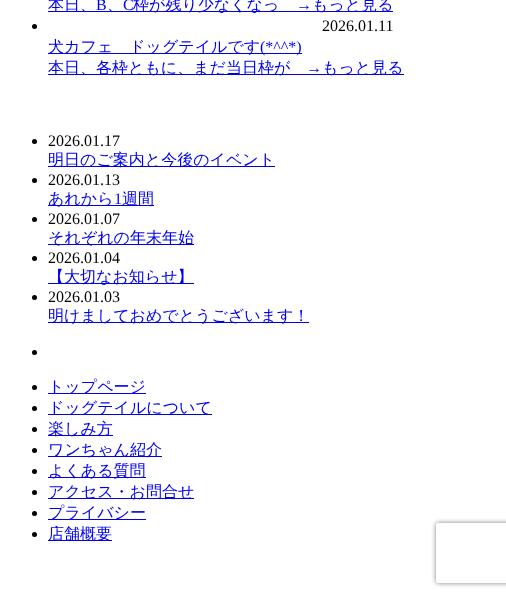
<!DOCTYPE html>
<meta charset="utf-8">
<style>body { margin: 0 } canvas { display: block }</style>
<canvas id="canvas" width="506" height="597"></canvas>
<script type="module">
  const canvas = document.getElementById("canvas");
  const g = canvas.getContext("2d");
  g.miterLimit = 4;
  g.fontKerning = "normal";
  function drawText(s, x, y, [font, color]) {
    g.font = font;
    g.fillStyle = color;
    g.fillText(s, x, y);
  }
  function fillBox(x, y, w, h, color) {
    g.fillStyle = color;
    g.fillRect(x, y, w, h);
  }

  const s1 = ["500 16px WenQuanYi Zen Hei", "#0000EE"];
  const s2 = ["16px Liberation Serif", "#0000EE"];
  const s3 = ["16px Liberation Serif", "#000000"];

  fillBox(0, 0, 506, 597, "#FFFFFF");
  fillBox(48, 11, 345, 1, "#0000EE");
  drawText("本日、", 48, 10, s1);
  drawText("B", 96, 10, s2);
  drawText("、", 107, 10, s1);
  drawText("C", 123, 10, s2);
  drawText("枠が残り少なくなっ", 133, 10, s1);
  drawText("→", 296, 10, s2);
  drawText("もっと見る", 312, 10, s1);
  g.fillStyle = "#000000";
  g.beginPath();
  g.arc(34.5, 26.5, 2.5, 0, Math.PI * 2);
  g.fill();
  drawText("2026.01.11", 322, 31, s3);
  fillBox(48, 53, 254, 1, "#0000EE");
  drawText("犬カフェ　ドッグテイルです", 48, 52, s1);
  drawText("(*^^*)", 260, 52, s2);
  fillBox(48, 74, 356, 1, "#0000EE");
  drawText("本日、各枠ともに、まだ当日枠が", 48, 73, s1);
  drawText("→", 306, 73, s2);
  drawText("もっと見る", 322, 73, s1);
  g.fillStyle = "#000000";
  g.beginPath();
  g.arc(34.5, 141.5, 2.5, 0, Math.PI * 2);
  g.fill();
  drawText("2026.01.17", 48, 146, s3);
  fillBox(48, 166, 227, 1, "#0000EE");
  drawText("明日のご案内と今後のイベント", 48, 165, s1);
  g.fillStyle = "#000000";
  g.beginPath();
  g.arc(34.5, 180.5, 2.5, 0, Math.PI * 2);
  g.fill();
  drawText("2026.01.13", 48, 185, s3);
  fillBox(48, 205, 106, 1, "#0000EE");
  drawText("あれから", 48, 204, s1);
  drawText("1", 114, 204, s2);
  drawText("週間", 122, 204, s1);
  g.fillStyle = "#000000";
  g.beginPath();
  g.arc(34.5, 219.5, 2.5, 0, Math.PI * 2);
  g.fill();
  drawText("2026.01.07", 48, 224, s3);
  fillBox(48, 244, 146, 1, "#0000EE");
  drawText("それぞれの年末年始", 48, 243, s1);
  g.fillStyle = "#000000";
  g.beginPath();
  g.arc(34.5, 258.5, 2.5, 0, Math.PI * 2);
  g.fill();
  drawText("2026.01.04", 48, 263, s3);
  fillBox(48, 283, 146, 1, "#0000EE");
  drawText("【大切なお知らせ】", 48, 282, s1);
  g.fillStyle = "#000000";
  g.beginPath();
  g.arc(34.5, 297.5, 2.5, 0, Math.PI * 2);
  g.fill();
  drawText("2026.01.03", 48, 302, s3);
  fillBox(48, 322, 261, 1, "#0000EE");
  drawText("明けましておめでとうございます！", 48, 321, s1);
  g.fillStyle = "#000000";
  g.beginPath();
  g.arc(34.5, 352.5, 2.5, 0, Math.PI * 2);
  g.fill();
  g.beginPath();
  g.arc(34.5, 387.5, 2.5, 0, Math.PI * 2);
  g.fill();
  fillBox(48, 393, 98, 1, "#0000EE");
  drawText("トップページ", 48, 392, s1);
  g.fillStyle = "#000000";
  g.beginPath();
  g.arc(34.5, 408.5, 2.5, 0, Math.PI * 2);
  g.fill();
  fillBox(48, 414, 164, 1, "#0000EE");
  drawText("ドッグテイルについて", 48, 413, s1);
  g.fillStyle = "#000000";
  g.beginPath();
  g.arc(34.5, 429.5, 2.5, 0, Math.PI * 2);
  g.fill();
  fillBox(48, 435, 65, 1, "#0000EE");
  drawText("楽しみ方", 48, 434, s1);
  g.fillStyle = "#000000";
  g.beginPath();
  g.arc(34.5, 450.5, 2.5, 0, Math.PI * 2);
  g.fill();
  fillBox(48, 456, 114, 1, "#0000EE");
  drawText("ワンちゃん紹介", 48, 455, s1);
  g.fillStyle = "#000000";
  g.beginPath();
  g.arc(34.5, 471.5, 2.5, 0, Math.PI * 2);
  g.fill();
  fillBox(48, 477, 98, 1, "#0000EE");
  drawText("よくある質問", 48, 476, s1);
  g.fillStyle = "#000000";
  g.beginPath();
  g.arc(34.5, 492.5, 2.5, 0, Math.PI * 2);
  g.fill();
  fillBox(48, 498, 146, 1, "#0000EE");
  drawText("アクセス・お問合せ", 48, 497, s1);
  g.fillStyle = "#000000";
  g.beginPath();
  g.arc(34.5, 513.5, 2.5, 0, Math.PI * 2);
  g.fill();
  fillBox(48, 519, 98, 1, "#0000EE");
  drawText("プライバシー", 48, 518, s1);
  g.fillStyle = "#000000";
  g.beginPath();
  g.arc(34.5, 534.5, 2.5, 0, Math.PI * 2);
  g.fill();
  fillBox(48, 540, 64, 1, "#0000EE");
  drawText("店舗概要", 48, 539, s1);
  g.save();
  g.beginPath();
  g.moveTo(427, 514);
  g.lineTo(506, 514);
  g.lineTo(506, 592);
  g.lineTo(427, 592);
  g.closePath();
  g.moveTo(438, 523);
  g.lineTo(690, 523);
  g.bezierCurveTo(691, 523, 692, 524, 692, 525);
  g.lineTo(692, 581);
  g.bezierCurveTo(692, 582, 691, 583, 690, 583);
  g.lineTo(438, 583);
  g.bezierCurveTo(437, 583, 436, 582, 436, 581);
  g.lineTo(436, 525);
  g.bezierCurveTo(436, 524, 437, 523, 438, 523);
  g.closePath();
  g.clip("evenodd");
  g.fillStyle = "#808080";
  g.filter = "blur(2.5px)";
  g.beginPath();
  g.roundRect(436, 523, 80, 60, 2);
  g.fill();
  g.filter = "none";
  g.restore();
</script>
